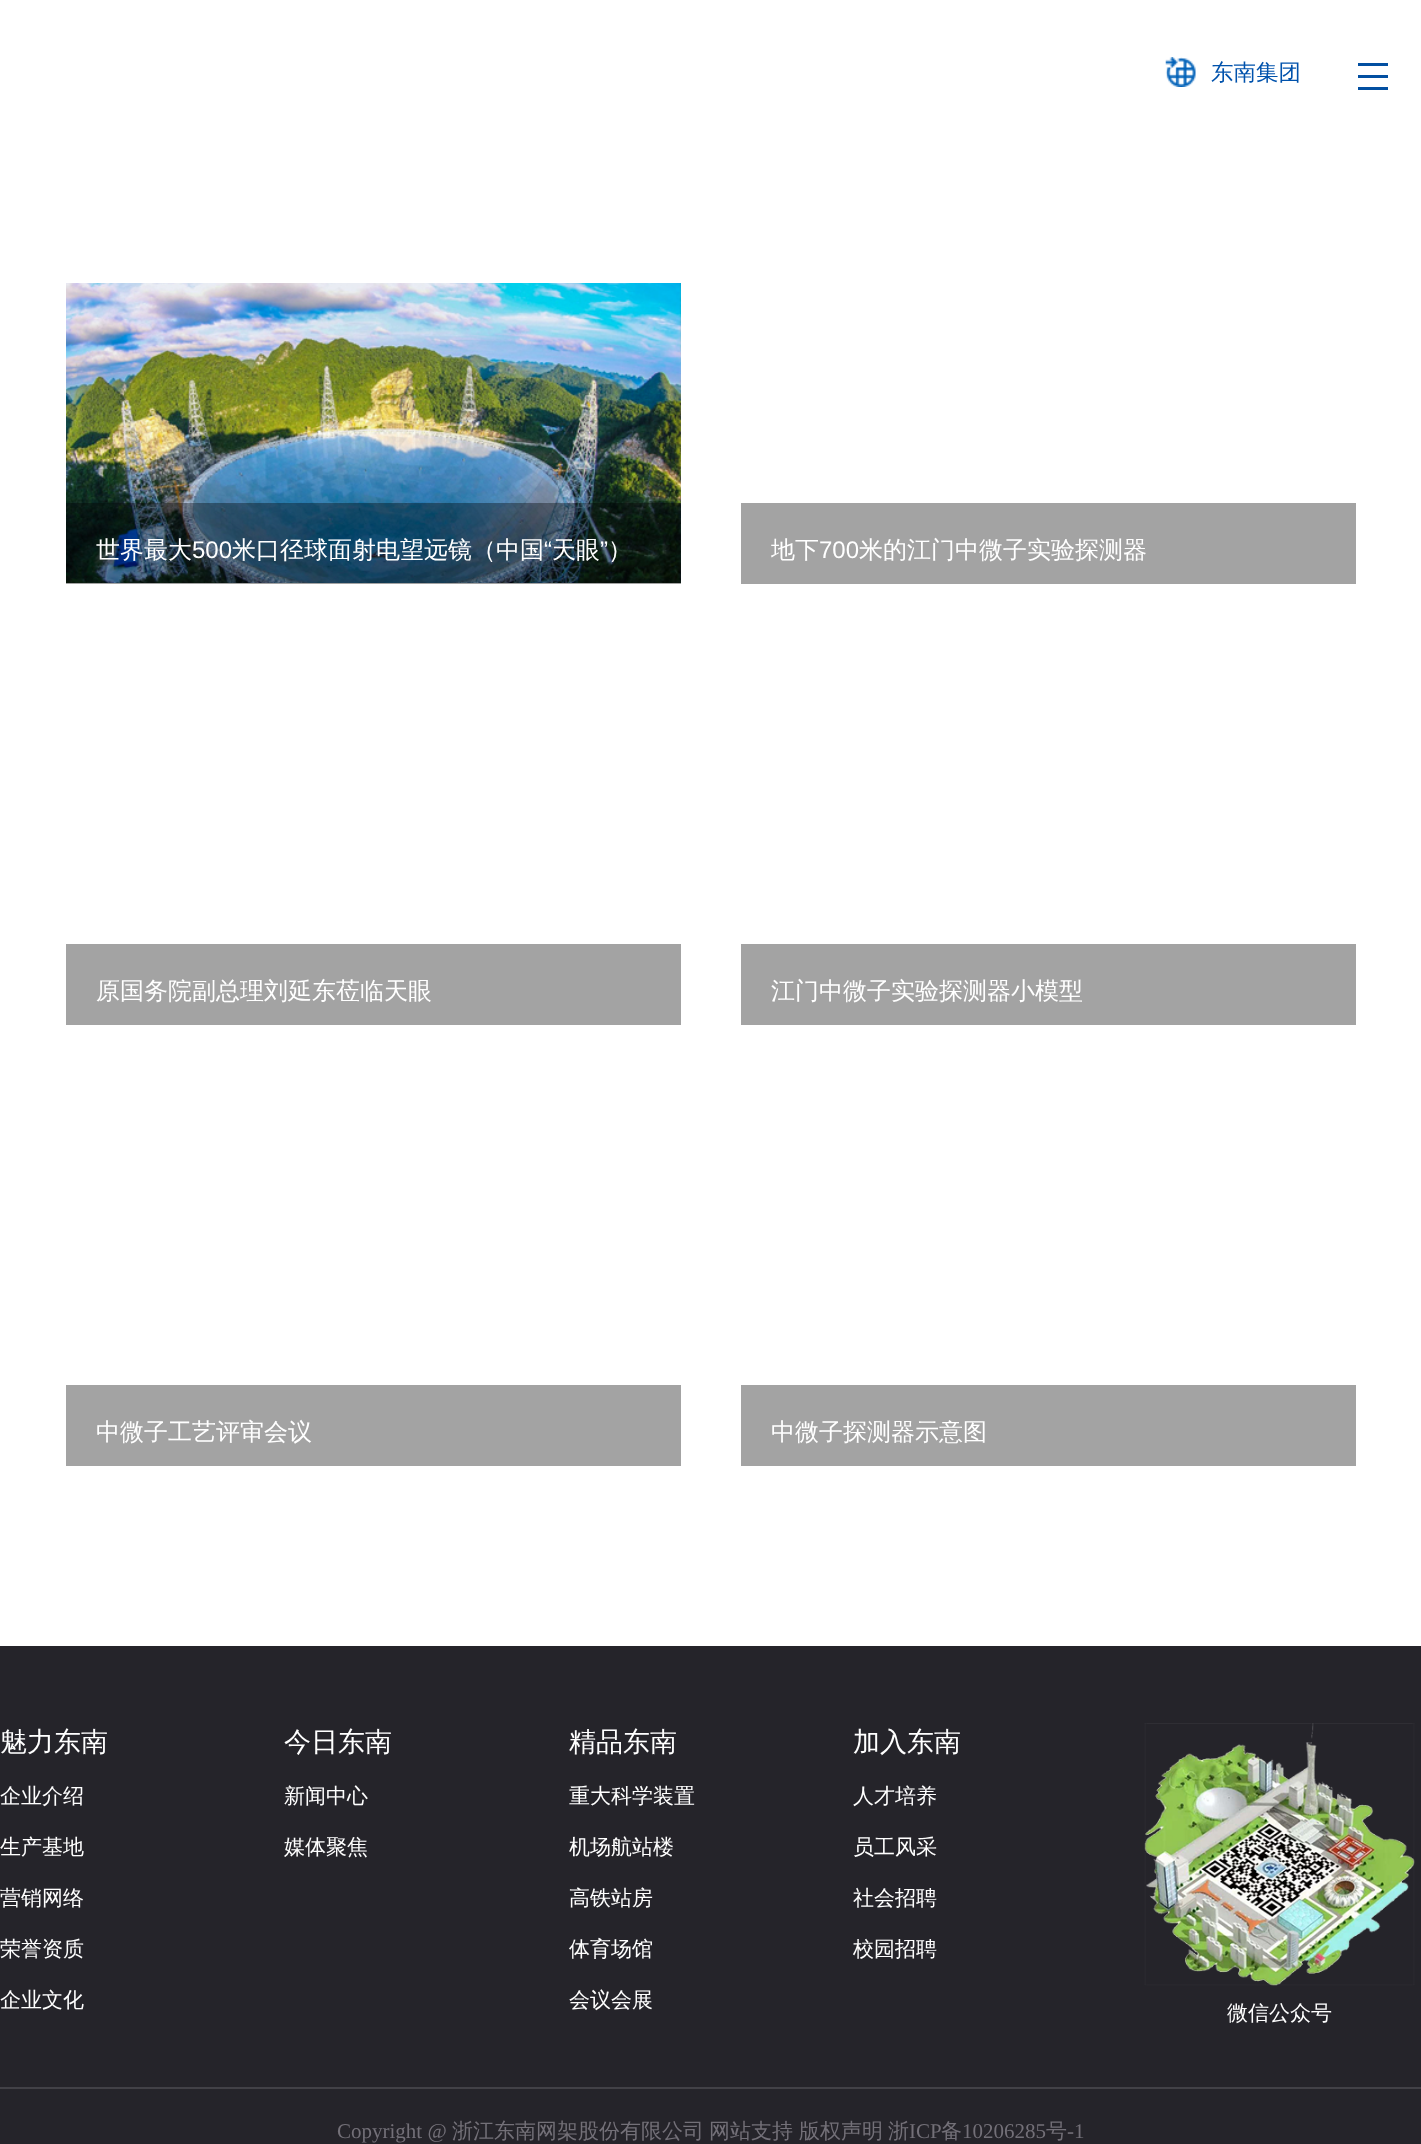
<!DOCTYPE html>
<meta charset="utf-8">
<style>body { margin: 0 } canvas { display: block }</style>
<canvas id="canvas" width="1421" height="2144"></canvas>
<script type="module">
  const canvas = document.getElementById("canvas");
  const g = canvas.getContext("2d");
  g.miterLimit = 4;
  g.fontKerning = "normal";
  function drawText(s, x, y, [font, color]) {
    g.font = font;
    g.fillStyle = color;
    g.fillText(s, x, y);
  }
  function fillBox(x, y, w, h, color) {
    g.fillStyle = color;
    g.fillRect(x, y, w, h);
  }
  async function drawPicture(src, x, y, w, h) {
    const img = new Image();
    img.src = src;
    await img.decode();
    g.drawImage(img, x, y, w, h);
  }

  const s1 = ["500 22.5px WenQuanYi Zen Hei", "#0052AC"];
  const s2 = ["500 24px WenQuanYi Zen Hei", "#FFFFFF"];
  const s3 = ["24px Liberation Sans", "#FFFFFF"];
  const s4 = ["500 27px WenQuanYi Zen Hei", "#FFFFFF"];
  const s5 = ["500 21px WenQuanYi Zen Hei", "#FFFFFF"];
  const s6 = ["21px Liberation Serif", "#737078"];
  const s7 = ["500 21px WenQuanYi Zen Hei", "#737078"];

  fillBox(0, 0, 1421, 2144, "#FFFFFF");
  await drawPicture("pic1.png", 1165, 57, 31, 30);
  drawText("东南集团", 1211, 80, s1);
  fillBox(1358, 63, 30, 3, "#024FA1");
  fillBox(1358, 75, 30, 3, "#024FA1");
  fillBox(1358, 87, 30, 3, "#024FA1");
  await drawPicture("pic2.png", 66, 283, 615, 300);
  fillBox(66, 503, 615, 81, "rgba(0, 0, 0, 0.36)");
  drawText("世界最大", 96, 558, s2);
  drawText("500", 192, 558, s3);
  drawText("米口径球面射电望远镜（中国", 232, 558, s2);
  drawText("“", 544, 558, s3);
  drawText("天眼", 552, 558, s2);
  drawText("”", 600, 558, s3);
  drawText("）", 608, 558, s2);
  fillBox(741, 503, 615, 81, "#A3A3A3");
  drawText("地下", 771, 558, s2);
  drawText("700", 819, 558, s3);
  drawText("米的江门中微子实验探测器", 859, 558, s2);
  fillBox(66, 944, 615, 81, "#A3A3A3");
  drawText("原国务院副总理刘延东莅临天眼", 96, 999, s2);
  fillBox(741, 944, 615, 81, "#A3A3A3");
  drawText("江门中微子实验探测器小模型", 771, 999, s2);
  fillBox(66, 1385, 615, 81, "#A3A3A3");
  drawText("中微子工艺评审会议", 96, 1440, s2);
  fillBox(741, 1385, 615, 81, "#A3A3A3");
  drawText("中微子探测器示意图", 771, 1440, s2);
  fillBox(0, 1646, 1421, 498, "#25242A");
  drawText("魅力东南", 0, 1751, s4);
  drawText("企业介绍", 0, 1803, s5);
  drawText("生产基地", 0, 1854, s5);
  drawText("营销网络", 0, 1905, s5);
  drawText("荣誉资质", 0, 1956, s5);
  drawText("企业文化", 0, 2007, s5);
  drawText("今日东南", 284, 1751, s4);
  drawText("新闻中心", 284, 1803, s5);
  drawText("媒体聚焦", 284, 1854, s5);
  drawText("精品东南", 569, 1751, s4);
  drawText("重大科学装置", 569, 1803, s5);
  drawText("机场航站楼", 569, 1854, s5);
  drawText("高铁站房", 569, 1905, s5);
  drawText("体育场馆", 569, 1956, s5);
  drawText("会议会展", 569, 2007, s5);
  drawText("加入东南", 853, 1751, s4);
  drawText("人才培养", 853, 1803, s5);
  drawText("员工风采", 853, 1854, s5);
  drawText("社会招聘", 853, 1905, s5);
  drawText("校园招聘", 853, 1956, s5);
  await drawPicture("pic3.png", 1144, 1723, 271, 263);
  drawText("微信公众号", 1227, 2020, s5);
  fillBox(0, 2087, 1421, 2, "#424147");
  drawText("Copyright @", 337, 2138, s6);
  drawText("浙江东南网架股份有限公司", 452, 2138, s7);
  drawText("网站支持", 709, 2138, s7);
  drawText("版权声明", 799, 2138, s7);
  drawText("浙", 888, 2138, s7);
  drawText("ICP", 909, 2138, s6);
  drawText("备", 941, 2138, s7);
  drawText("10206285", 962, 2138, s6);
  drawText("号", 1046, 2138, s7);
  drawText("-1", 1067, 2138, s6);
</script>
